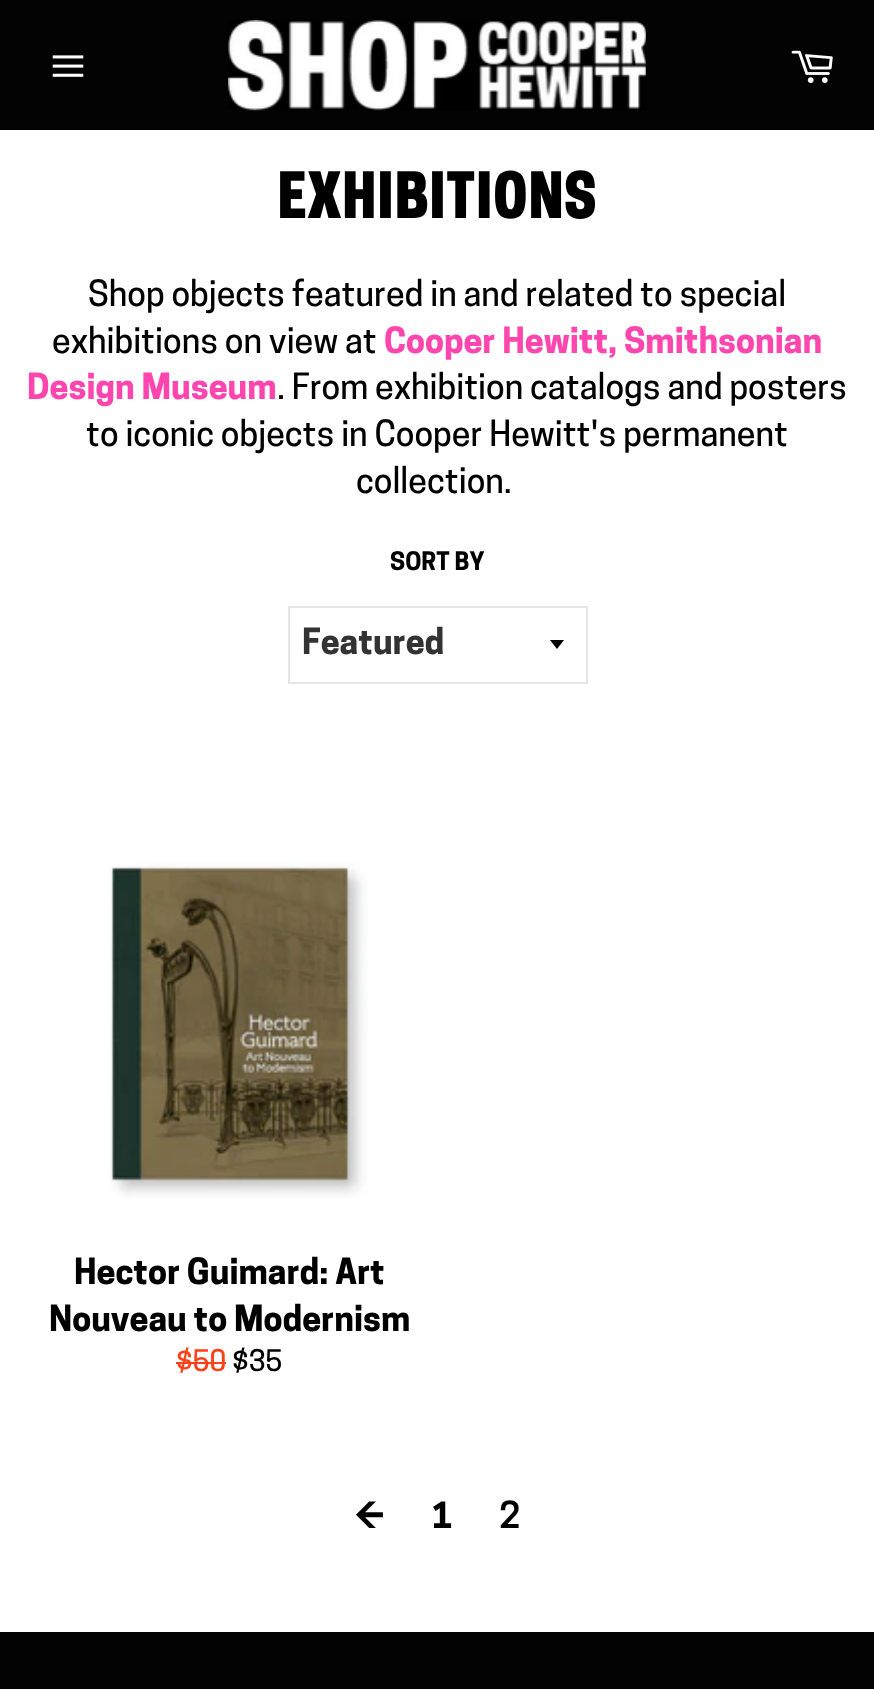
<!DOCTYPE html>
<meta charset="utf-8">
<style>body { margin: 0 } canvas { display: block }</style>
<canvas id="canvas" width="874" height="1689"></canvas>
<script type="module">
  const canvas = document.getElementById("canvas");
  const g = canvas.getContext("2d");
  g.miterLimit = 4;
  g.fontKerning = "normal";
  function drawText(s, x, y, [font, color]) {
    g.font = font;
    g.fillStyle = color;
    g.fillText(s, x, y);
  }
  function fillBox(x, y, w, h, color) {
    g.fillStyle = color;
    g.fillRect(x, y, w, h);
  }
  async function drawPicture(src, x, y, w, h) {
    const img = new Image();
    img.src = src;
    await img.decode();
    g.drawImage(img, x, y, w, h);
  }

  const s1 = ["900 60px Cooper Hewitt", "#000000"];
  const s2 = ["500 34px Cooper Hewitt", "#000000"];
  const s3 = ["bold 34px Cooper Hewitt", "#FF46AF"];
  const s4 = ["bold 24px Cooper Hewitt", "#000000"];
  const s5 = ["bold 34px Cooper Hewitt", "#333333"];
  const s6 = ["bold 34px Cooper Hewitt", "#000000"];
  const s7 = ["500 28px Cooper Hewitt", "#FF4019"];
  const s8 = ["500 28px Cooper Hewitt", "#000000"];
  const s9 = ["bold 34px 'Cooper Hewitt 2'", "#000000"];

  fillBox(0, 0, 874, 1689, "#FFFFFF");
  fillBox(0, 0, 874, 130, "#030303");
  await drawPicture("pic1.png", 52, 55, 32, 22);
  await drawPicture("pic2.png", 228, 20, 418, 91);
  await drawPicture("pic3.png", 791, 50, 42, 33);
  drawText("EXHIBITIONS", 277, 218, s1);
  drawText("Shop objects featured in and related to special", 88, 306, s2);
  drawText("exhibitions on view at", 52, 353, s2);
  drawText("Cooper Hewitt, Smithsonian", 384, 353, s3);
  drawText("Design Museum", 27, 399, s3);
  drawText(". From exhibition catalogs and posters", 277, 399, s2);
  drawText("to iconic objects in Cooper Hewitt's permanent", 86, 446, s2);
  drawText("collection.", 356, 493, s2);
  drawText("SORT BY", 390, 570, s4);
  g.beginPath();
  g.moveTo(550, 640);
  g.lineTo(557, 649);
  g.lineTo(564, 640);
  g.closePath();
  g.fill();
  g.strokeStyle = "#E6E6E6";
  g.lineWidth = 2;
  g.strokeRect(289, 607, 298, 76);
  drawText("Featured", 302, 654, s5);
  await drawPicture("pic4.png", 110, 862, 258, 336);
  drawText("Hector Guimard: Art", 74, 1284, s6);
  drawText("Nouveau to Modernism", 49, 1331, s6);
  drawText("$50", 176, 1371, s7);
  fillBox(176, 1362, 50, 2, "#FF4019");
  drawText("$35", 232, 1371, s8);
  drawText("←", 354, 1528, s6);
  drawText("1", 432, 1528, s6);
  drawText("2", 499, 1528, s9);
  fillBox(0, 1632, 874, 57, "#030303");
</script>
